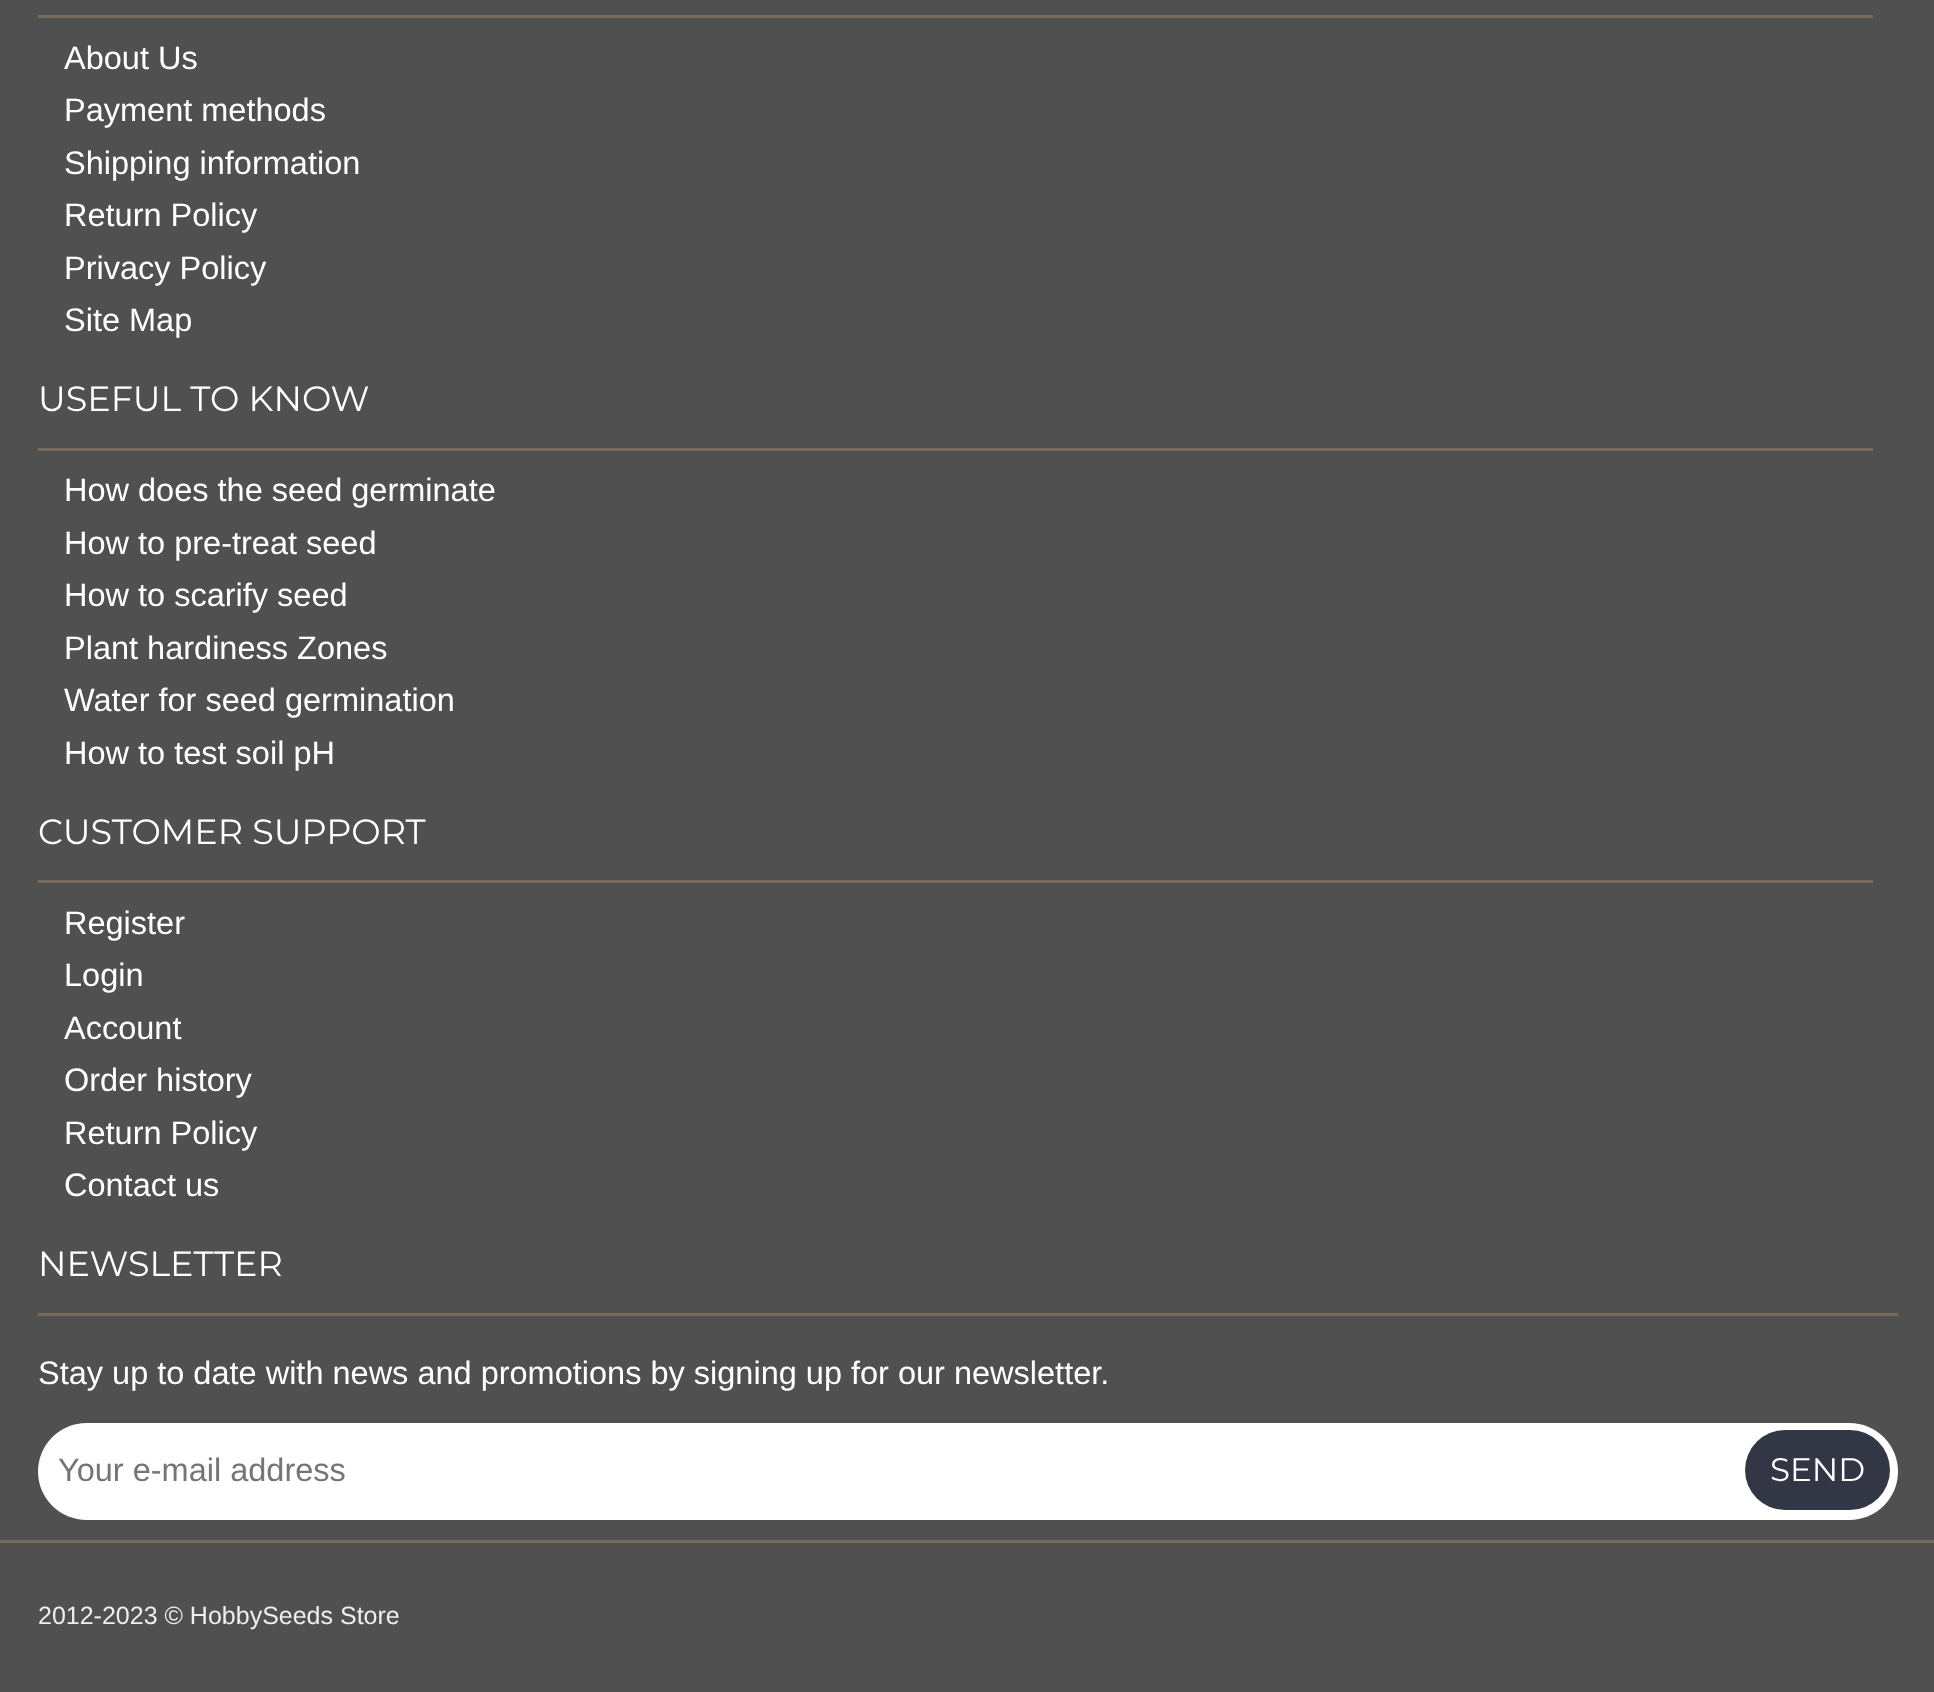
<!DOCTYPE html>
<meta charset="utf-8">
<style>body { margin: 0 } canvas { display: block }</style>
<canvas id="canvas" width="1934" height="1692"></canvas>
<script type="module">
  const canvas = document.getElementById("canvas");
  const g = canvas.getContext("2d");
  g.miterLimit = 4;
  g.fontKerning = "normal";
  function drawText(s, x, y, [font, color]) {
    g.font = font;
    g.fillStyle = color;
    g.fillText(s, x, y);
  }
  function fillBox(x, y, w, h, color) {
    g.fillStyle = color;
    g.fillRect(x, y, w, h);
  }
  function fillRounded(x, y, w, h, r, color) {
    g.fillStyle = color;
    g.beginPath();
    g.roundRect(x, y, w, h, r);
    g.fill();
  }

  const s1 = ["32.5px Liberation Sans", "#FFFFFF"];
  const s2 = ["35px Montserrat", "#FFFFFF"];
  const s3 = ["32.5px Liberation Sans", "#757575"];
  const s4 = ["32.5px Montserrat", "#FFFFFF"];
  const s5 = ["25px Liberation Sans", "#EEEEEE"];

  fillBox(0, 0, 1934, 1692, "#505050");
  fillBox(38, 15, 1835, 3, "#786B5D");
  drawText("About Us", 64, 69, s1);
  drawText("Payment methods", 64, 121, s1);
  drawText("Shipping information", 64, 174, s1);
  drawText("Return Policy", 64, 226, s1);
  drawText("Privacy Policy", 64, 279, s1);
  drawText("Site Map", 64, 331, s1);
  fillBox(38, 448, 1835, 3, "#786B5D");
  drawText("USEFUL TO KNOW", 38, 411, s2);
  drawText("How does the seed germinate", 64, 501, s1);
  drawText("How to pre-treat seed", 64, 554, s1);
  drawText("How to scarify seed", 64, 606, s1);
  drawText("Plant hardiness Zones", 64, 659, s1);
  drawText("Water for seed germination", 64, 711, s1);
  drawText("How to test soil pH", 64, 764, s1);
  fillBox(38, 880, 1835, 3, "#786B5D");
  drawText("CUSTOMER SUPPORT", 38, 844, s2);
  drawText("Register", 64, 934, s1);
  drawText("Login", 64, 986, s1);
  drawText("Account", 64, 1039, s1);
  drawText("Order history", 64, 1091, s1);
  drawText("Return Policy", 64, 1144, s1);
  drawText("Contact us", 64, 1196, s1);
  fillBox(38, 1313, 1860, 3, "#786B5D");
  drawText("NEWSLETTER", 38, 1276, s2);
  drawText("Stay up to date with news and promotions by signing up for our newsletter.", 38, 1384, s1);
  fillRounded(38, 1423, 1860, 97, 48.5, "#FFFFFF");
  drawText("Your e-mail address", 58, 1481, s3);
  fillRounded(1745, 1430, 145, 80, 40, "#333745");
  drawText("SEND", 1770, 1481, s4);
  fillBox(0, 1540, 1934, 3, "#786B5D");
  drawText("2012-2023 © HobbySeeds Store", 38, 1624, s5);
</script>
